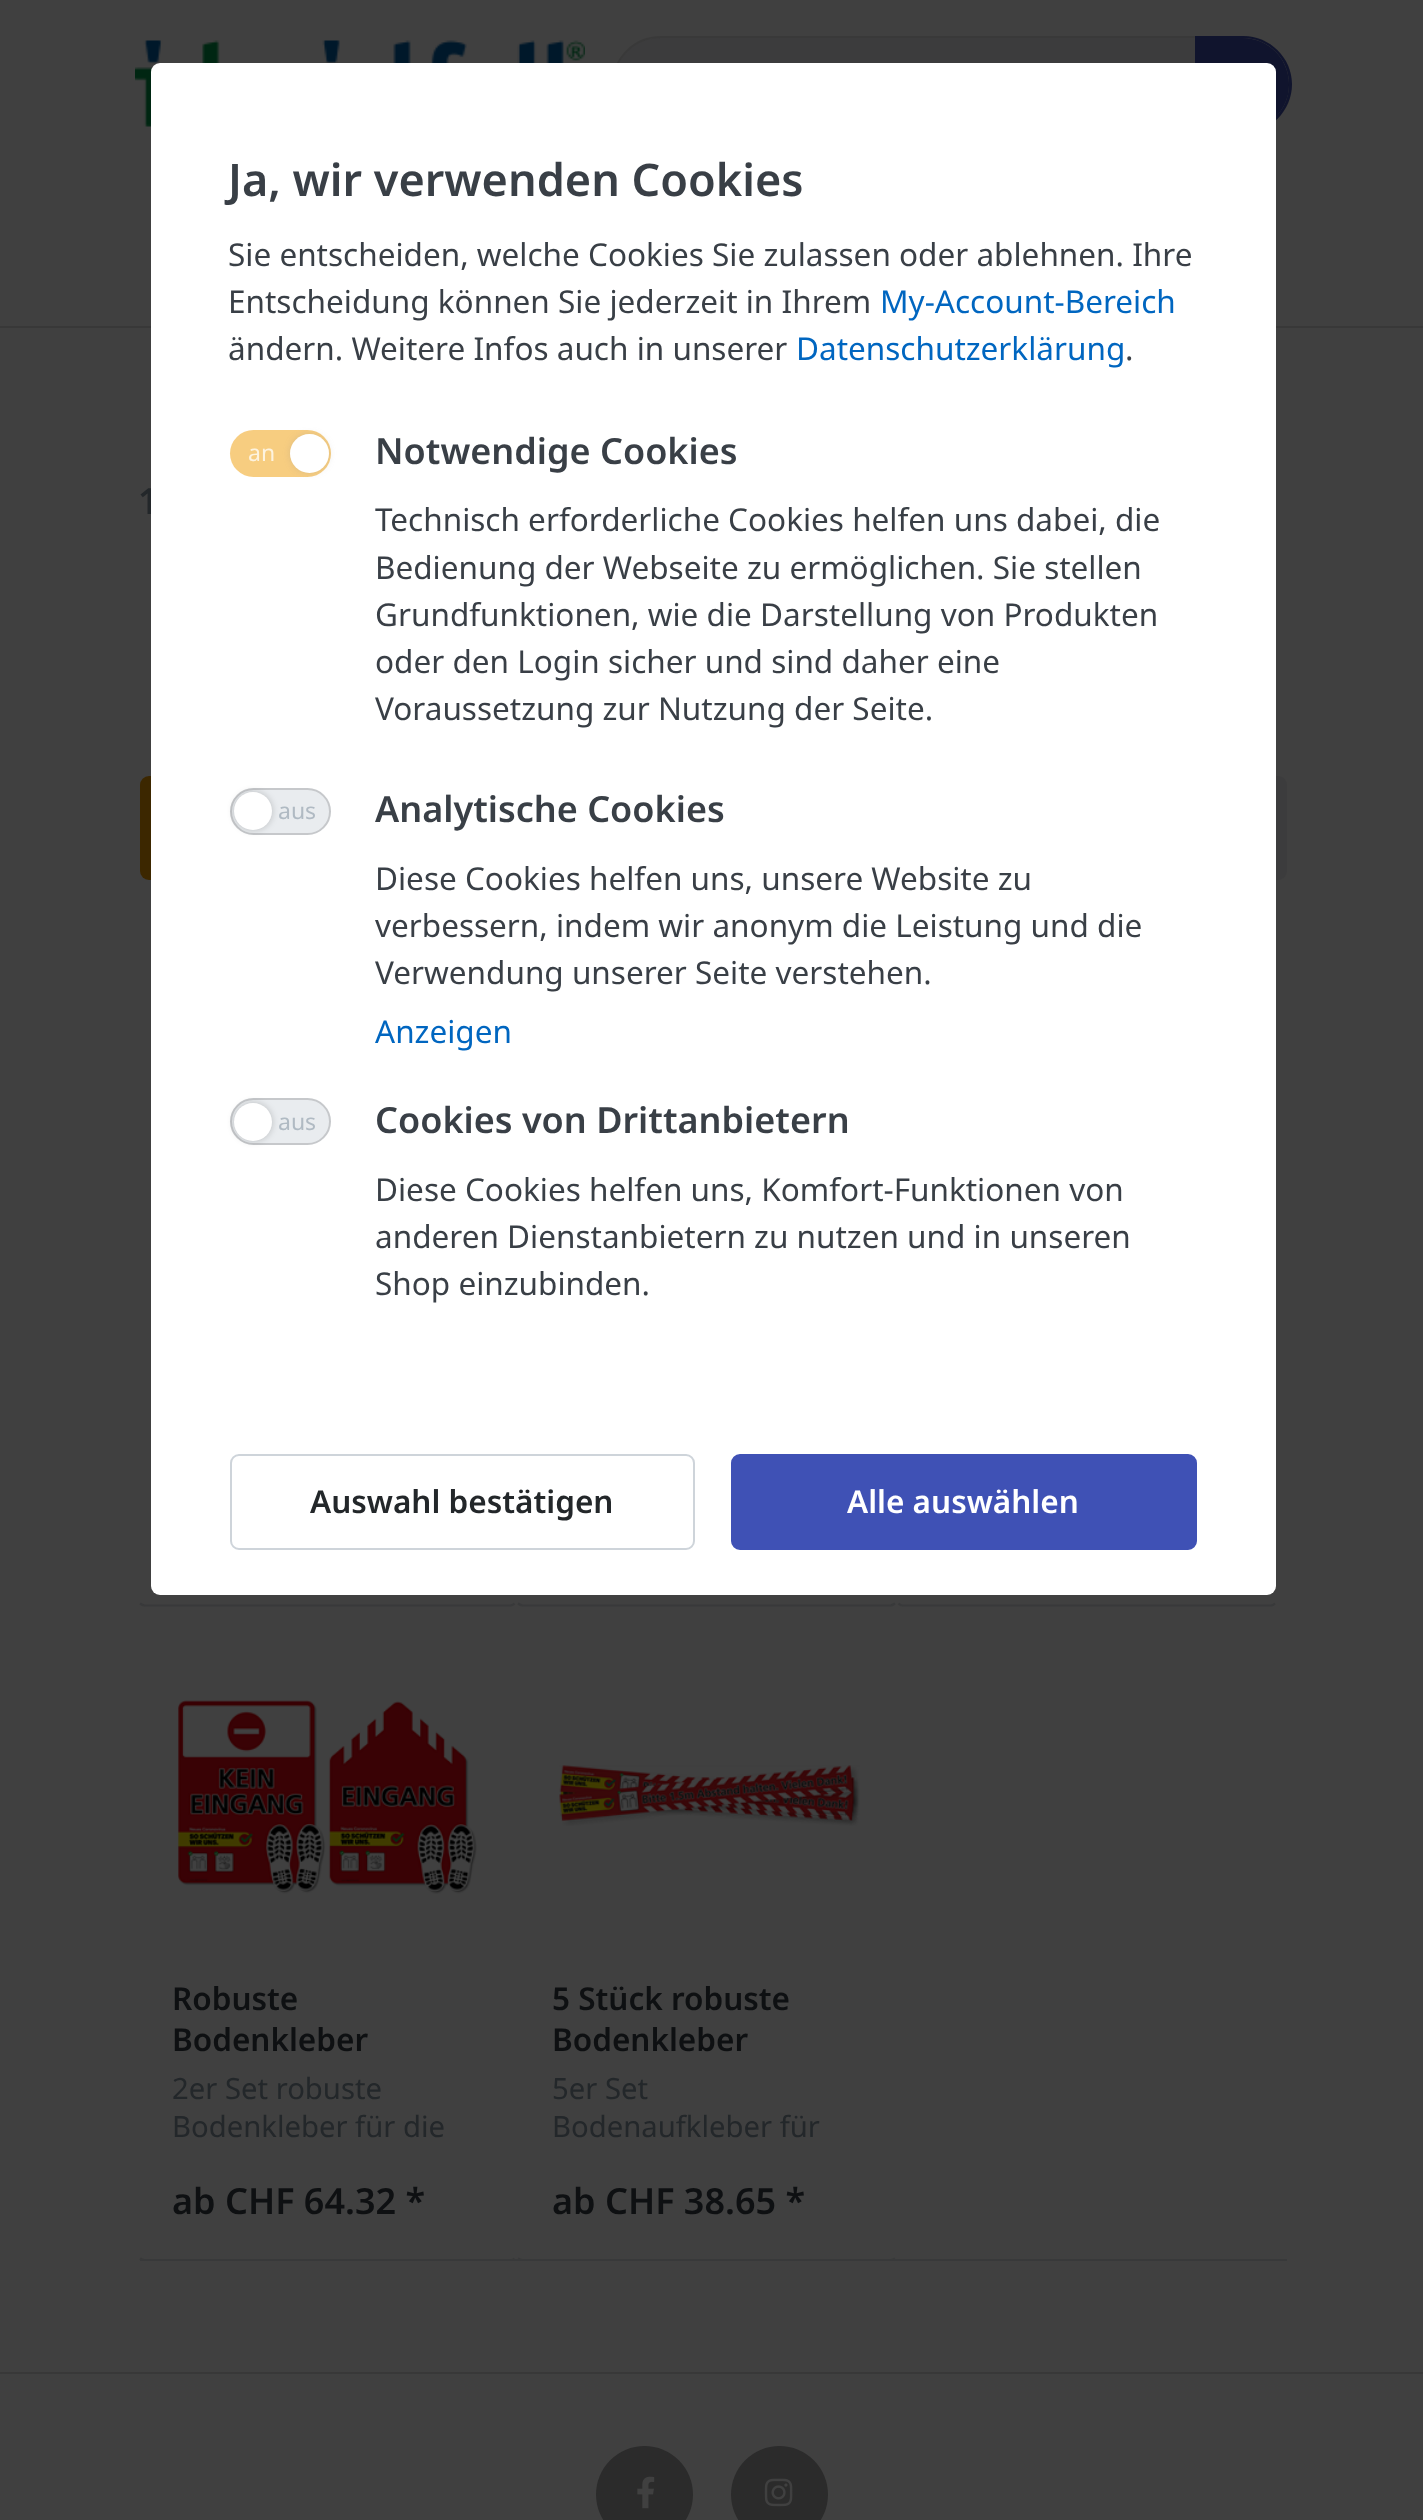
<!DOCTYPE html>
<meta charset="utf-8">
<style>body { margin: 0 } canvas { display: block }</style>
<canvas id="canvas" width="1423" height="2520"></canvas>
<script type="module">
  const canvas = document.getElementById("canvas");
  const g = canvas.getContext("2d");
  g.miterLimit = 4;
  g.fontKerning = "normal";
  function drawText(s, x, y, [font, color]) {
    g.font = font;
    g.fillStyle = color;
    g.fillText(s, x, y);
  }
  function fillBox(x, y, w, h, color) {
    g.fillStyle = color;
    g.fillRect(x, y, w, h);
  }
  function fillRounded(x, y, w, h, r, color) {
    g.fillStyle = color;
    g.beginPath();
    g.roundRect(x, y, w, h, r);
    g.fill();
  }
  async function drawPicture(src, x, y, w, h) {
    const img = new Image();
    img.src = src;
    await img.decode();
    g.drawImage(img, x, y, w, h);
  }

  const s1 = ["600 36px Noto Sans", "#23272A"];
  const s2 = ["600 45px Noto Sans", "#393F46"];
  const s3 = ["31.5px Noto Sans", "#393F46"];
  const s4 = ["31.5px Noto Sans", "#0066C0"];
  const s5 = ["23px Noto Sans", "#FDF3DF"];
  const s6 = ["600 36px Noto Sans", "#393F46"];
  const s7 = ["23px Noto Sans", "#B0BAC3"];
  const s8 = ["600 31.5px Noto Sans", "#23272A"];
  const s9 = ["600 31.5px Noto Sans", "#FFFFFF"];
  const s10 = ["600 31.5px Noto Sans", "#0E1012"];
  const s11 = ["29.25px Noto Sans", "#23272A"];
  const s12 = ["600 36px Noto Sans", "#0E1012"];

  fillBox(0, 0, 1423, 2520, "#404040");
  fillBox(0, 326, 1423, 2, "#383838");
  await drawPicture("pic1.png", 135, 40, 450, 87);
  fillRounded(614, 38, 675, 93, 46.5, "#3C3C3D");
  g.beginPath();
  g.roundRect(613, 37, 678, 95, 47.5);
  g.strokeStyle = "rgba(0, 0, 0, 0.1)";
  g.lineWidth = 2;
  g.stroke();
  g.fillStyle = "#10142D";
  g.beginPath();
  g.roundRect(1195, 38, 94, 93, [0, 46.5, 46.5, 0]);
  g.fill();
  g.beginPath();
  g.moveTo(1195, 36);
  g.lineTo(1243, 36);
  g.bezierCurveTo(1270, 36, 1292, 58, 1292, 84);
  g.bezierCurveTo(1292, 111, 1270, 133, 1243, 133);
  g.lineTo(1195, 133);
  g.closePath();
  g.moveTo(1195, 38);
  g.lineTo(1243, 38);
  g.bezierCurveTo(1269, 38, 1289, 59, 1289, 84);
  g.bezierCurveTo(1289, 110, 1269, 130, 1243, 130);
  g.lineTo(1195, 130);
  g.closePath();
  g.fill("evenodd");
  drawText("1", 138, 514, s1);
  fillRounded(140, 776, 474, 104, 9, "#3C2700");
  fillRounded(1175, 776, 112, 104, 9, "#3C3C3D");
  fillRounded(151, 63, 1125, 1532, 9, "#FFFFFF");
  drawText("Ja, wir verwenden Cookies", 228, 196, s2);
  drawText("Sie entscheiden, welche Cookies Sie zulassen oder ablehnen. Ihre", 228, 266, s3);
  drawText("Entscheidung können Sie jederzeit in Ihrem", 228, 313, s3);
  drawText("My-Account-Bereich", 880, 313, s4);
  drawText("ändern. Weitere Infos auch in unserer", 228, 360, s3);
  drawText("Datenschutzerklärung", 796, 360, s4);
  drawText(".", 1125, 360, s3);
  fillRounded(230, 430, 101, 47, 23.5, "#F7CD80");
  drawText("an", 248, 461, s5);
  g.fillStyle = "rgba(128, 128, 128, 0.2)";
  g.filter = "blur(3.5px)";
  g.beginPath();
  g.roundRect(290, 434, 39, 39, 19.5);
  g.fill();
  g.filter = "none";
  g.fillStyle = "#FFFFFF";
  g.beginPath();
  g.arc(309.5, 453.5, 19.5, 0, Math.PI * 2);
  g.fill();
  drawText("Notwendige Cookies", 375, 464, s6);
  drawText("Technisch erforderliche Cookies helfen uns dabei, die", 375, 531, s3);
  drawText("Bedienung der Webseite zu ermöglichen. Sie stellen", 375, 579, s3);
  drawText("Grundfunktionen, wie die Darstellung von Produkten", 375, 626, s3);
  drawText("oder den Login sicher und sind daher eine", 375, 673, s3);
  drawText("Voraussetzung zur Nutzung der Seite.", 375, 720, s3);
  fillRounded(230, 788, 101, 47, 23.5, "#E9ECEF");
  g.beginPath();
  g.roundRect(231, 789, 99, 45, 22.5);
  g.strokeStyle = "rgba(0, 0, 0, 0.15)";
  g.stroke();
  g.fillStyle = "rgba(0, 0, 0, 0.2)";
  g.filter = "blur(3.5px)";
  g.beginPath();
  g.roundRect(234, 792, 38, 38, 19);
  g.fill();
  g.filter = "none";
  g.fillStyle = "#FFFFFF";
  g.beginPath();
  g.arc(253, 811, 19, 0, Math.PI * 2);
  g.fill();
  drawText("aus", 278, 819, s7);
  drawText("Analytische Cookies", 375, 822, s6);
  drawText("Diese Cookies helfen uns, unsere Website zu", 375, 890, s3);
  drawText("verbessern, indem wir anonym die Leistung und die", 375, 937, s3);
  drawText("Verwendung unserer Seite verstehen.", 375, 984, s3);
  drawText("Anzeigen", 375, 1043, s4);
  fillRounded(230, 1098, 101, 47, 23.5, "#E9ECEF");
  g.beginPath();
  g.roundRect(231, 1099, 99, 45, 22.5);
  g.stroke();
  g.fillStyle = "rgba(0, 0, 0, 0.2)";
  g.filter = "blur(3.5px)";
  g.beginPath();
  g.roundRect(234, 1103, 38, 38, 19);
  g.fill();
  g.filter = "none";
  g.fillStyle = "#FFFFFF";
  g.beginPath();
  g.arc(253, 1122, 19, 0, Math.PI * 2);
  g.fill();
  drawText("aus", 278, 1130, s7);
  drawText("Cookies von Drittanbietern", 375, 1133, s6);
  drawText("Diese Cookies helfen uns, Komfort-Funktionen von", 375, 1201, s3);
  drawText("anderen Dienstanbietern zu nutzen und in unseren", 375, 1248, s3);
  drawText("Shop einzubinden.", 375, 1295, s3);
  g.beginPath();
  g.roundRect(231, 1455, 463, 94, 8);
  g.strokeStyle = "#CED4DA";
  g.stroke();
  drawText("Auswahl bestätigen", 310, 1513, s8);
  g.fillStyle = "#3F51B5";
  g.beginPath();
  g.roundRect(732, 1455, 464, 94, 8);
  g.fill();
  g.strokeStyle = "#3F51B5";
  g.stroke();
  drawText("Alle auswählen", 847, 1513, s9);
  g.beginPath();
  g.moveTo(514.5, 1603.5);
  g.bezierCurveTo(513.5, 1604.5, 512, 1605.5, 510.5, 1605.5);
  g.lineTo(144.5, 1605.5);
  g.bezierCurveTo(143, 1605.5, 141.5, 1604.5, 140, 1603.5);
  g.strokeStyle = "#38393A";
  g.lineWidth = 2.2;
  g.stroke();
  g.beginPath();
  g.moveTo(895, 1603.5);
  g.bezierCurveTo(893.5, 1604.5, 892, 1605.5, 890.5, 1605.5);
  g.lineTo(522.5, 1605.5);
  g.bezierCurveTo(521, 1605.5, 519.5, 1604.5, 518, 1603.5);
  g.stroke();
  g.beginPath();
  g.moveTo(1275, 1603.5);
  g.bezierCurveTo(1274, 1604.5, 1272.5, 1605.5, 1271, 1605.5);
  g.lineTo(902.5, 1605.5);
  g.bezierCurveTo(901, 1605.5, 899.5, 1604.5, 898.5, 1603.5);
  g.stroke();
  g.beginPath();
  g.moveTo(514.5, 2258.5);
  g.bezierCurveTo(513.5, 2259.5, 512, 2260, 510.5, 2260);
  g.lineTo(144.5, 2260);
  g.bezierCurveTo(143, 2260, 141.5, 2259.5, 140, 2258.5);
  g.stroke();
  await drawPicture("pic2.png", 178, 1700, 299, 194);
  drawText("Robuste", 172, 2010, s10);
  drawText("Bodenkleber", 172, 2051, s10);
  drawText("2er Set robuste", 172, 2099, s11);
  drawText("Bodenkleber für die", 172, 2137, s11);
  drawText("ab CHF 64.32 *", 172, 2214, s12);
  g.beginPath();
  g.moveTo(895, 2258.5);
  g.bezierCurveTo(893.5, 2259.5, 892, 2260, 890.5, 2260);
  g.lineTo(522.5, 2260);
  g.bezierCurveTo(521, 2260, 519.5, 2259.5, 518, 2258.5);
  g.stroke();
  await drawPicture("pic3.png", 559, 1765, 301, 61);
  drawText("5 Stück robuste", 552, 2010, s10);
  drawText("Bodenkleber", 552, 2051, s10);
  drawText("5er Set", 552, 2099, s11);
  drawText("Bodenaufkleber für", 552, 2137, s11);
  drawText("ab CHF 38.65 *", 552, 2214, s12);
  fillBox(140, 2259, 1147, 2, "#38393A");
  fillBox(0, 2372, 1423, 2, "#383838");
  g.fillStyle = "#2B2B2B";
  g.beginPath();
  g.arc(644.5, 2494.5, 48.5, 0, Math.PI * 2);
  g.fill();
  await drawPicture("pic4.png", 637, 2476, 18, 33);
  g.beginPath();
  g.arc(779.5, 2494.5, 48.5, 0, Math.PI * 2);
  g.fill();
  await drawPicture("pic5.png", 764, 2478, 29, 29);
</script>
